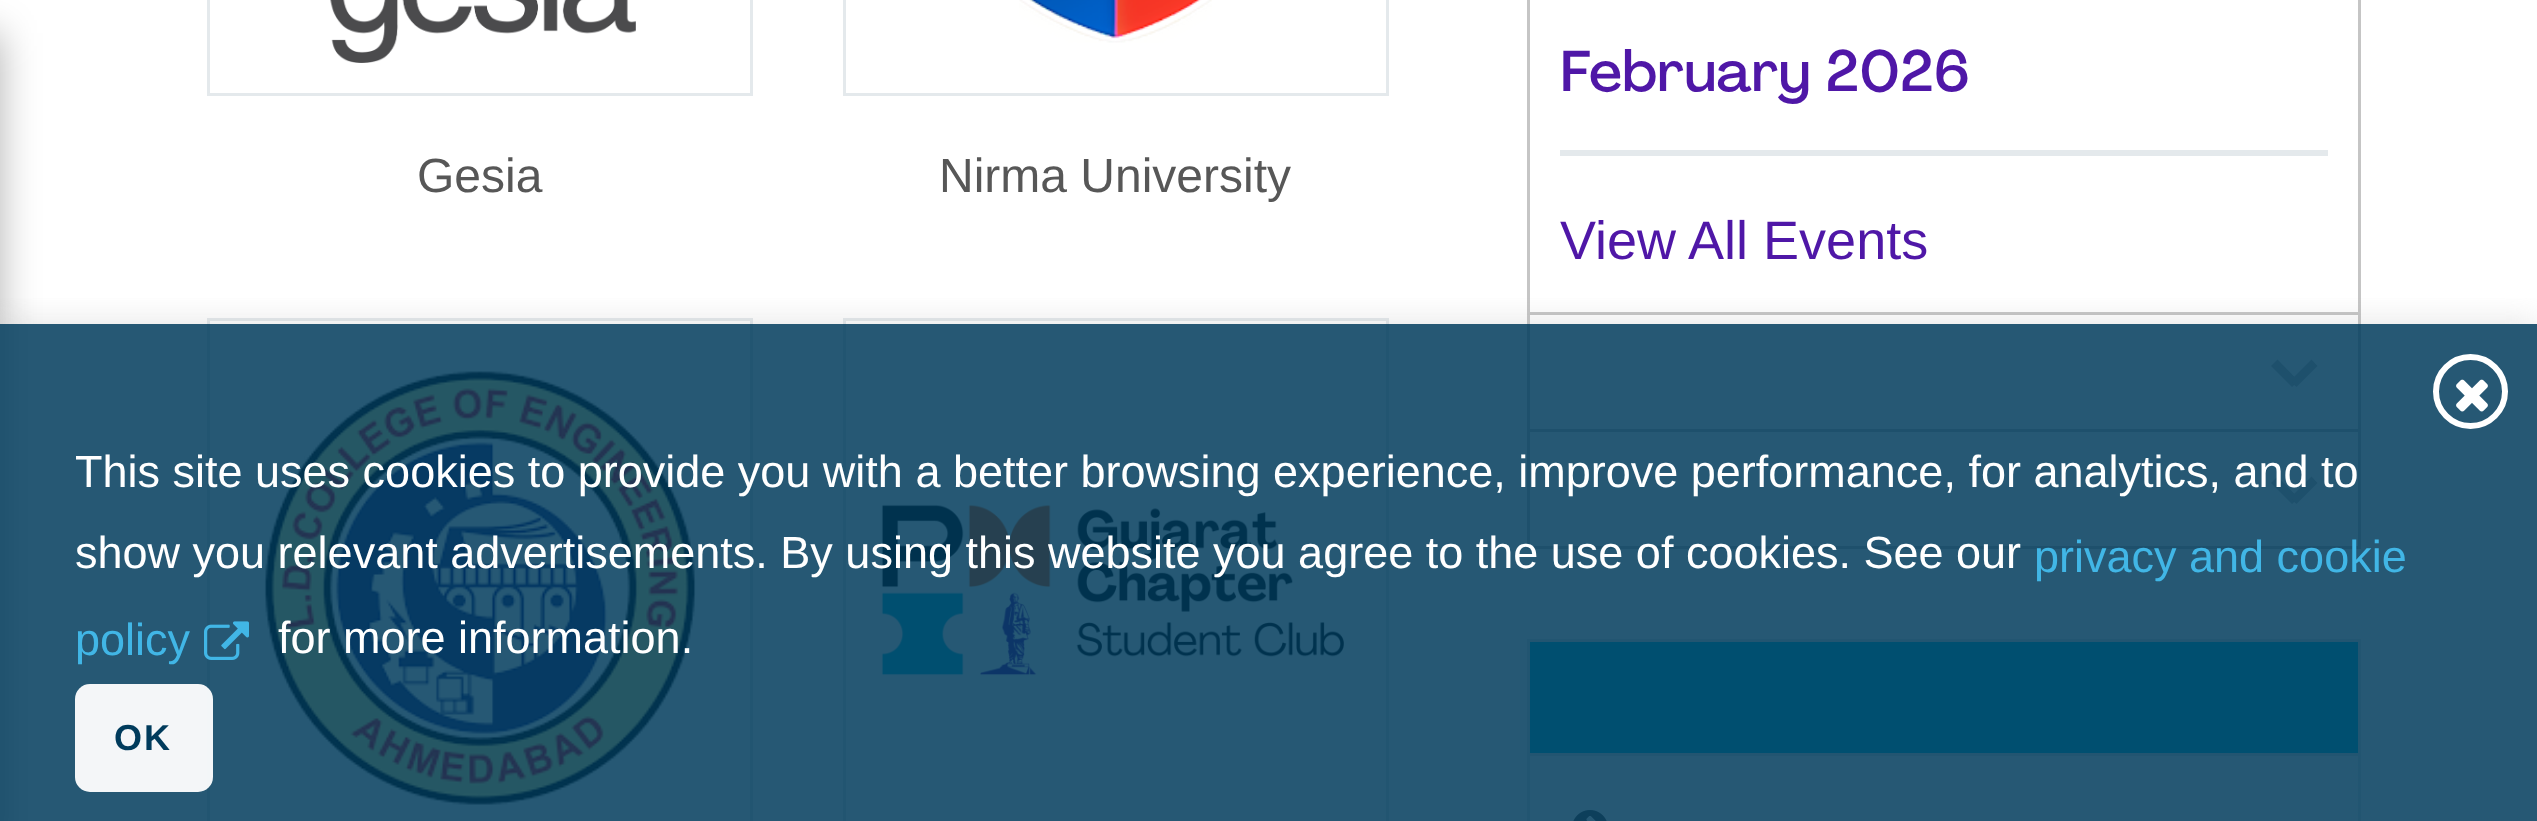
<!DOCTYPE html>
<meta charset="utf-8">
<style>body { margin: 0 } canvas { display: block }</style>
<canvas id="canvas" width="2537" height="821"></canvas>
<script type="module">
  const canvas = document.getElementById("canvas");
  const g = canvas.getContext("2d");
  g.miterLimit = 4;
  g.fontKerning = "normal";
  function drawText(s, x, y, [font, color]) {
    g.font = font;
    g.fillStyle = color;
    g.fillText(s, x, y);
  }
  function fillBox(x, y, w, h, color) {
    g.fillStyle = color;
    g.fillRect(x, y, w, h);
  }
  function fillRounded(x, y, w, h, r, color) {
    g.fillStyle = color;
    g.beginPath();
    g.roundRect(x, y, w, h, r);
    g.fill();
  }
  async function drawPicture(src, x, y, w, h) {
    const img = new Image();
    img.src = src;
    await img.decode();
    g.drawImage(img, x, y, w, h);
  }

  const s1 = ["48px Liberation Sans", "#575757"];
  const s2 = ["500 57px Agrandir", "#4F17A7"];
  const s3 = ["54px Liberation Sans", "#4F17A7"];
  const s4 = ["45px Liberation Sans", "#FFFFFF"];
  const s5 = ["45px Liberation Sans", "#41B6E6"];
  const s6 = ["bold 36px Liberation Sans", "#003B5C"];

  fillBox(0, 0, 2537, 821, "#FFFFFF");
  g.fillStyle = "rgba(0, 0, 0, 0.3)";
  g.filter = "blur(19.5px)";
  g.beginPath();
  g.rect(-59, 33, 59, 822);
  g.fill();
  g.filter = "none";
  g.strokeStyle = "#E4E9EC";
  g.lineWidth = 3;
  g.strokeRect(208.5, -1.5, 543, 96);
  await drawPicture("pic1.png", 330, 0, 306, 63);
  drawText("Gesia", 417, 192, s1);
  g.strokeRect(844.5, -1.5, 543, 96);
  await drawPicture("pic2.png", 1019, 0, 193, 43);
  drawText("Nirma University", 939, 192, s1);
  g.strokeRect(208.5, 319.5, 543, 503);
  await drawPicture("pic3.png", 264, 371, 432, 434);
  g.strokeRect(844.5, 319.5, 543, 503);
  await drawPicture("pic4.png", 881, 504, 463, 172);
  fillBox(2358, 0, 3, 549, "#C5C5C5");
  fillBox(1527, 546, 834, 3, "#C5C5C5");
  fillBox(1527, 0, 3, 549, "#C5C5C5");
  fillBox(1560, 150, 768, 6, "#E4E9EC");
  drawText("February 2026", 1560, 91, s2);
  drawText("View All Events", 1560, 259, s3);
  fillBox(1530, 312, 828, 3, "#C5C5C5");
  g.beginPath();
  g.moveTo(2292, 387);
  g.lineTo(2271, 366);
  g.lineTo(2277.5, 359.5);
  g.lineTo(2298.5, 381);
  g.closePath();
  g.fill();
  g.beginPath();
  g.moveTo(2296.5, 387);
  g.lineTo(2290, 381);
  g.lineTo(2311.5, 359.5);
  g.lineTo(2317.5, 366);
  g.closePath();
  g.fill();
  fillBox(1530, 429, 828, 3, "#C5C5C5");
  g.beginPath();
  g.moveTo(2292, 504);
  g.lineTo(2271, 483);
  g.lineTo(2277.5, 476.5);
  g.lineTo(2298.5, 498);
  g.closePath();
  g.fill();
  g.beginPath();
  g.moveTo(2296.5, 504);
  g.lineTo(2290, 498);
  g.lineTo(2311.5, 476.5);
  g.lineTo(2317.5, 483);
  g.closePath();
  g.fill();
  g.strokeRect(1528.5, 640.5, 831, 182);
  fillBox(1530, 642, 828, 111, "#05BFE0");
  fillBox(1530, 753, 828, 3, "#E4E9EC");
  await drawPicture("pic5.png", 1573, 810, 34, 11);
  g.save();
  g.beginPath();
  g.rect(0, 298, 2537, 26);
  g.clip();
  g.fillStyle = "rgba(172, 171, 171, 0.3)";
  g.filter = "blur(15px)";
  g.beginPath();
  g.rect(0, 321, 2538, 498);
  g.fill();
  g.filter = "none";
  g.restore();
  fillBox(0, 324, 2537, 497, "rgba(0, 59, 92, 0.85)");
  g.beginPath();
  g.arc(2470.5, 391.5, 34.5, 0, Math.PI * 2);
  g.strokeStyle = "#FFFFFF";
  g.lineWidth = 6;
  g.stroke();
  await drawPicture("pic6.png", 2456, 379, 32, 33);
  drawText("This site uses cookies to provide you with a better browsing experience, improve performance, for analytics, and to", 75, 487, s4);
  drawText("show you relevant advertisements. By using this website you agree to the use of cookies. See our", 75, 568, s4);
  drawText("privacy and cookie", 2034, 572, s5);
  drawText("policy", 75, 655, s5);
  await drawPicture("pic7.png", 204, 621, 45, 39);
  drawText("for more information.", 278, 653, s4);
  fillRounded(75, 684, 138, 108, 15, "rgba(255, 255, 255, 0.95)");
  g.letterSpacing = "2px";
  drawText("OK", 114, 750, s6);
</script>
